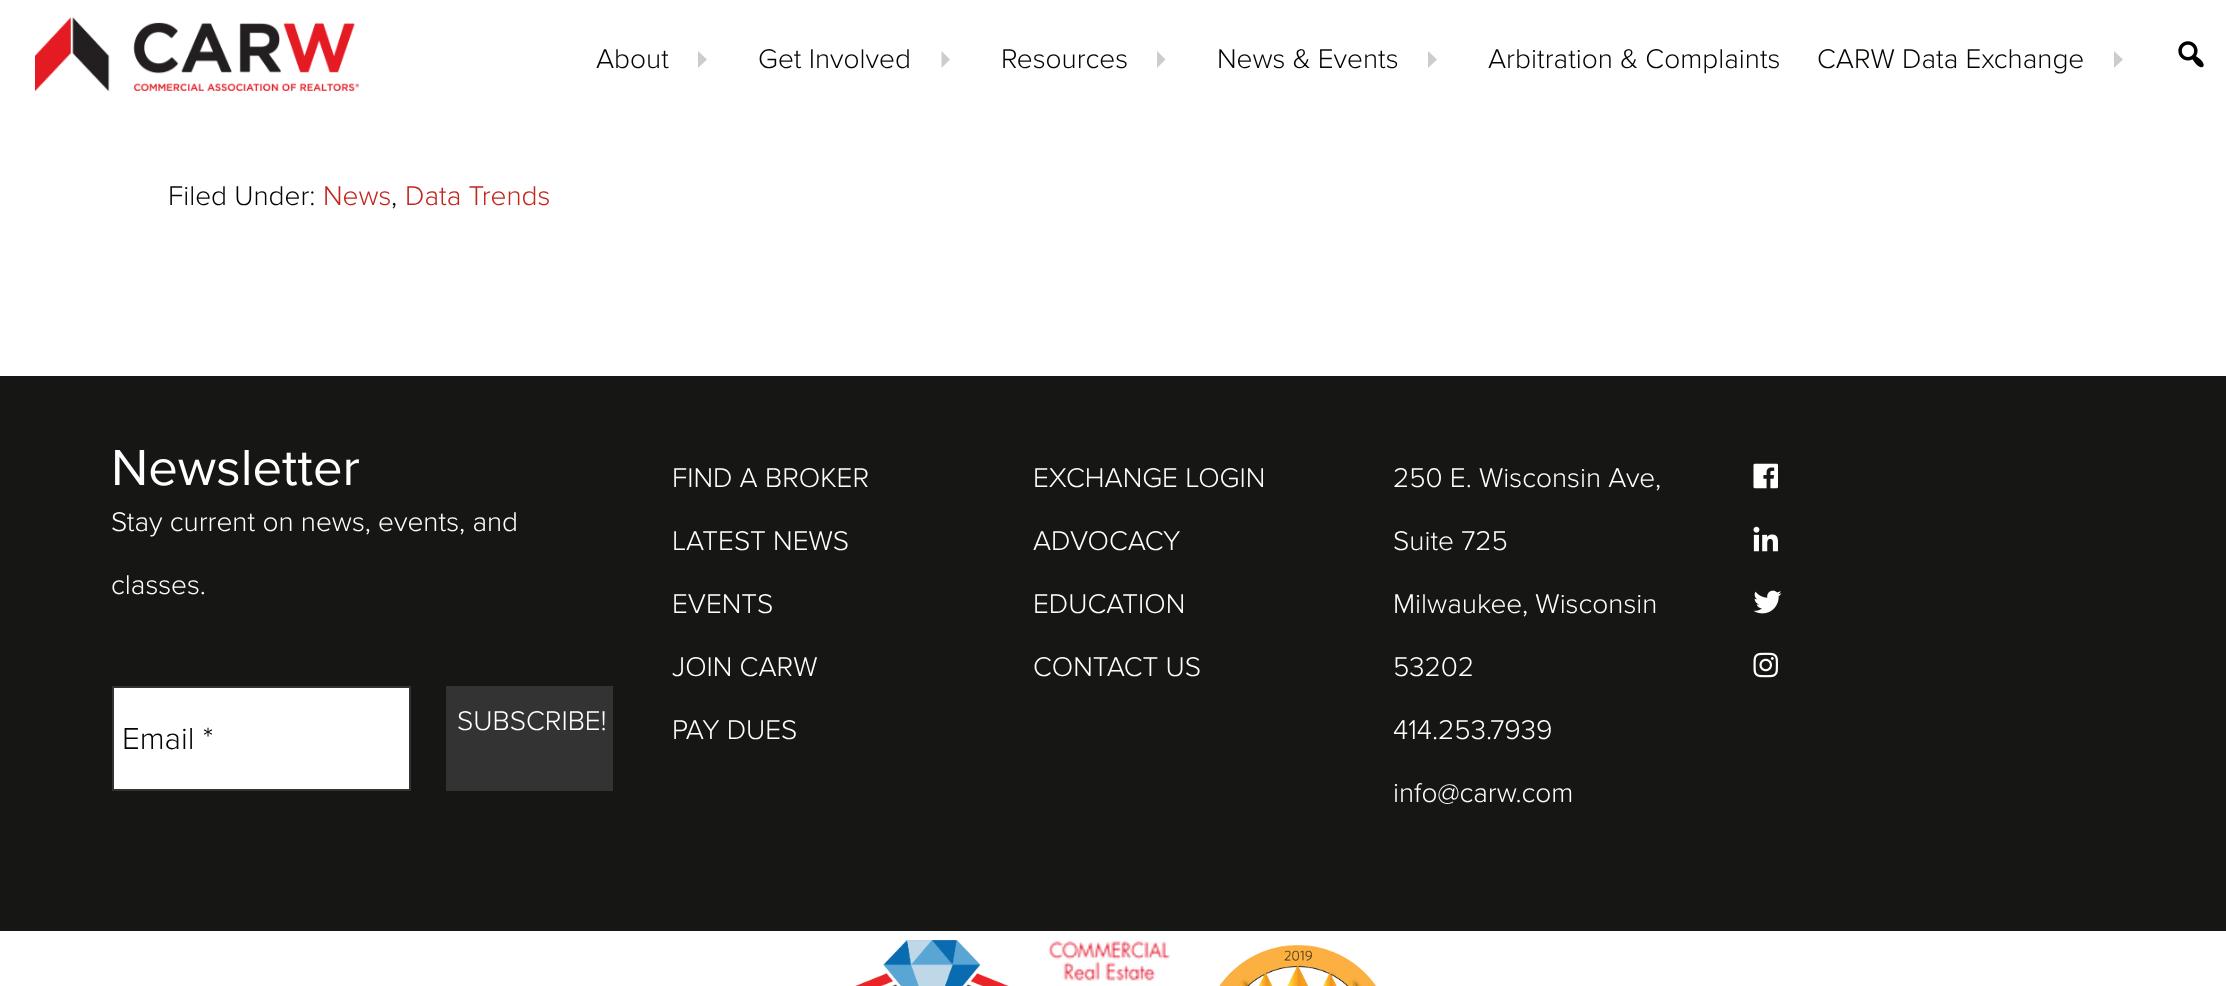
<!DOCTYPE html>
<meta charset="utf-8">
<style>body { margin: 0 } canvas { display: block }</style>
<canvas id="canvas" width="2226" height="986"></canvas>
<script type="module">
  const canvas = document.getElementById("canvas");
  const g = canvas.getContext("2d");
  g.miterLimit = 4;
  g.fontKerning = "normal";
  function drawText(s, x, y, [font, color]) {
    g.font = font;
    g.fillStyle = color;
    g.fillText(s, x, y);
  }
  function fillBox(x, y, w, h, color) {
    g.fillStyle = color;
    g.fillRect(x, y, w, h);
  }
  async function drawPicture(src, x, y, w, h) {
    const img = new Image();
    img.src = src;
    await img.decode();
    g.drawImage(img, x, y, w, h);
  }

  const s1 = ["300 28px Proxima Nova", "#040500"];
  const s2 = ["300 28px Proxima Nova", "#C3251D"];
  const s3 = ["52.5px Proxima Nova", "#FFFFFF"];
  const s4 = ["300 28px Proxima Nova", "#FFFFFF"];
  const s5 = ["300 31.5px Proxima Nova", "#040500"];

  fillBox(0, 0, 2226, 986, "#FFFFFF");
  await drawPicture("pic1.png", 35, 17, 324, 74);
  drawText("About", 596, 68, s1);
  g.fillStyle = "#CCCCCC";
  g.beginPath();
  g.moveTo(698, 68);
  g.lineTo(698, 51);
  g.lineTo(707, 59.5);
  g.closePath();
  g.fill();
  drawText("Get Involved", 758, 68, s1);
  g.fillStyle = "#CCCCCC";
  g.beginPath();
  g.moveTo(941.5, 68);
  g.lineTo(941.5, 51);
  g.lineTo(950, 59.5);
  g.closePath();
  g.fill();
  drawText("Resources", 1001, 68, s1);
  g.fillStyle = "#CCCCCC";
  g.beginPath();
  g.moveTo(1157, 68);
  g.lineTo(1157, 51);
  g.lineTo(1165.5, 59.5);
  g.closePath();
  g.fill();
  drawText("News & Events", 1217, 68, s1);
  g.fillStyle = "#CCCCCC";
  g.beginPath();
  g.moveTo(1428, 68);
  g.lineTo(1428, 51);
  g.lineTo(1437, 59.5);
  g.closePath();
  g.fill();
  drawText("Arbitration & Complaints", 1488, 68, s1);
  drawText("CARW Data Exchange", 1817, 68, s1);
  g.fillStyle = "#CCCCCC";
  g.beginPath();
  g.moveTo(2114, 68);
  g.lineTo(2114, 51);
  g.lineTo(2123, 59.5);
  g.closePath();
  g.fill();
  await drawPicture("pic2.png", 2178, 41, 26, 27);
  drawText("Filed Under:", 168, 205, s1);
  drawText("News", 323, 205, s2);
  drawText(",", 391, 205, s1);
  drawText("Data Trends", 405, 205, s2);
  fillBox(0, 376, 2226, 555, "#161615");
  drawText("Newsletter", 111, 485, s3);
  drawText("Stay current on news, events, and", 111, 531, s4);
  drawText("classes.", 111, 594, s4);
  fillBox(446, 686, 167, 105, "#343333");
  drawText("SUBSCRIBE!", 457, 730, s4);
  g.beginPath();
  g.rect(113, 687, 297, 103);
  g.fill();
  g.strokeStyle = "#333333";
  g.lineWidth = 2;
  g.stroke();
  drawText("Email *", 122, 749, s5);
  drawText("FIND A BROKER", 672, 487, s4);
  drawText("LATEST NEWS", 672, 550, s4);
  drawText("EVENTS", 672, 613, s4);
  drawText("JOIN CARW", 672, 676, s4);
  drawText("PAY DUES", 672, 739, s4);
  drawText("EXCHANGE LOGIN", 1033, 487, s4);
  drawText("ADVOCACY", 1033, 550, s4);
  drawText("EDUCATION", 1033, 613, s4);
  drawText("CONTACT US", 1033, 676, s4);
  drawText("250 E. Wisconsin Ave,", 1393, 487, s4);
  drawText("Suite 725", 1393, 550, s4);
  drawText("Milwaukee, Wisconsin", 1393, 613, s4);
  drawText("53202", 1393, 676, s4);
  drawText("414.253.7939", 1393, 739, s4);
  drawText("info@carw.com", 1393, 802, s4);
  await drawPicture("pic3.png", 1753, 463, 25, 26);
  await drawPicture("pic4.png", 1753, 526, 25, 26);
  await drawPicture("pic5.png", 1753, 590, 29, 24);
  await drawPicture("pic6.png", 1753, 652, 25, 26);
  await drawPicture("pic7.png", 855, 940, 154, 46);
  await drawPicture("pic8.png", 1048, 941, 122, 40);
  await drawPicture("pic9.png", 1219, 945, 158, 41);
</script>
